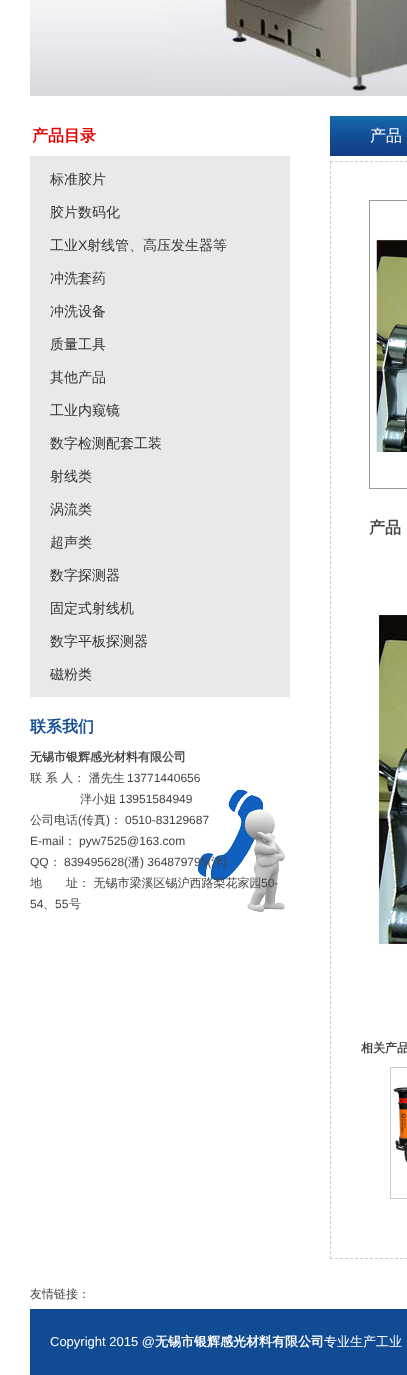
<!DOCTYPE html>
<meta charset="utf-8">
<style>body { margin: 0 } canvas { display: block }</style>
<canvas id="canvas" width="407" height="1375"></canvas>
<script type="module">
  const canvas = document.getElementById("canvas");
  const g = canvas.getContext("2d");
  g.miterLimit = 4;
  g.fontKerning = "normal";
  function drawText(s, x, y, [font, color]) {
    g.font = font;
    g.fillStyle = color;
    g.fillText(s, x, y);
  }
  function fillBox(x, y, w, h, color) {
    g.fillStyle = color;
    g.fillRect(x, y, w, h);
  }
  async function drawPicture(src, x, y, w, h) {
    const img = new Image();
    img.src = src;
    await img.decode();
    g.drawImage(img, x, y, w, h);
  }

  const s1 = ["bold 16px WenQuanYi Zen Hei", "#E40000"];
  const s2 = ["500 14px WenQuanYi Zen Hei", "#333333"];
  const s3 = ["14px Liberation Sans", "#333333"];
  const s4 = ["bold 16px WenQuanYi Zen Hei", "#114B94"];
  const s5 = ["bold 12px WenQuanYi Zen Hei", "#444444"];
  const s6 = ["500 12px WenQuanYi Zen Hei", "#444444"];
  const s7 = ["12px Liberation Sans", "#444444"];
  const s8 = ["500 16px WenQuanYi Zen Hei", "#FFFFFF"];
  const s9 = ["bold 16px WenQuanYi Zen Hei", "#444444"];
  const s10 = ["13px Liberation Sans", "#FFFFFF"];
  const s11 = ["bold 13px WenQuanYi Zen Hei", "#FFFFFF"];
  const s12 = ["500 13px WenQuanYi Zen Hei", "#FFFFFF"];

  fillBox(0, 0, 407, 1375, "#FFFFFF");
  await drawPicture("pic1.png", 30, 0, 377, 96);
  fillBox(30, 156, 260, 541, "#E9E9E9");
  drawText("产品目录", 32, 141, s1);
  drawText("标准胶片", 50, 184, s2);
  drawText("胶片数码化", 50, 217, s2);
  drawText("工业", 50, 250, s2);
  drawText("X", 78, 250, s3);
  drawText("射线管、高压发生器等", 87, 250, s2);
  drawText("冲洗套药", 50, 283, s2);
  drawText("冲洗设备", 50, 316, s2);
  drawText("质量工具", 50, 349, s2);
  drawText("其他产品", 50, 382, s2);
  drawText("工业内窥镜", 50, 415, s2);
  drawText("数字检测配套工装", 50, 448, s2);
  drawText("射线类", 50, 481, s2);
  drawText("涡流类", 50, 514, s2);
  drawText("超声类", 50, 547, s2);
  drawText("数字探测器", 50, 580, s2);
  drawText("固定式射线机", 50, 613, s2);
  drawText("数字平板探测器", 50, 646, s2);
  drawText("磁粉类", 50, 679, s2);
  await drawPicture("pic2.png", 198, 789, 87, 123);
  drawText("联系我们", 30, 732, s4);
  drawText("无锡市银辉感光材料有限公司", 30, 761, s5);
  drawText("联 系 人： 潘先生", 30, 782, s6);
  drawText("13771440656", 127, 782, s7);
  drawText("泮小姐", 80, 803, s6);
  drawText("13951584949", 119, 803, s7);
  drawText("公司电话", 30, 824, s6);
  drawText("(", 78, 824, s7);
  drawText("传真", 82, 824, s6);
  drawText(")", 106, 824, s7);
  drawText("：", 110, 824, s6);
  drawText("0510-83129687", 125, 824, s7);
  drawText("E-mail", 30, 845, s7);
  drawText("：", 64, 845, s6);
  drawText("pyw7525@163.com", 79, 845, s7);
  drawText("QQ", 30, 866, s7);
  drawText("：", 49, 866, s6);
  drawText("839495628(", 64, 866, s7);
  drawText("潘", 128, 866, s6);
  drawText(") 364879795(", 140, 866, s7);
  drawText("泮", 211, 866, s6);
  drawText(")", 223, 866, s7);
  drawText("地　　址： 无锡市梁溪区锡沪西路梨花家园", 30, 887, s6);
  drawText("50-", 261, 887, s7);
  drawText("54", 30, 908, s7);
  drawText("、", 43, 908, s6);
  drawText("55", 55, 908, s7);
  drawText("号", 69, 908, s6);
  await drawPicture("pic3.png", 330, 116, 77, 40);
  drawText("产品", 370, 141, s8);
  g.beginPath();
  g.moveTo(330, 161.5);
  g.lineTo(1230, 161.5);
  g.strokeStyle = "#CCCCCC";
  g.setLineDash([3, 2.01]);
  g.stroke();
  g.beginPath();
  g.moveTo(330, 1258.5);
  g.lineTo(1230, 1258.5);
  g.stroke();
  g.beginPath();
  g.moveTo(330.5, 161);
  g.lineTo(330.5, 1259);
  g.setLineDash([3, 2]);
  g.stroke();
  g.strokeStyle = "#999999";
  g.setLineDash([]);
  g.strokeRect(369.5, 200.5, 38, 288);
  await drawPicture("pic4.png", 375, 237, 32, 216);
  drawText("产品", 369, 533, s9);
  await drawPicture("pic5.png", 377, 610, 30, 336);
  drawText("相关产品", 361, 1052, s5);
  g.strokeStyle = "#CCCCCC";
  g.strokeRect(390.5, 1067.5, 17, 131);
  await drawPicture("pic6.png", 393, 1087, 14, 76);
  drawText("友情链接：", 30, 1298, s6);
  fillBox(30, 1309, 377, 66, "#114B94");
  drawText("Copyright 2015 @", 50, 1346, s10);
  drawText("无锡市银辉感光材料有限公司", 155, 1346, s11);
  drawText("专业生产工业", 324, 1346, s12);
</script>
